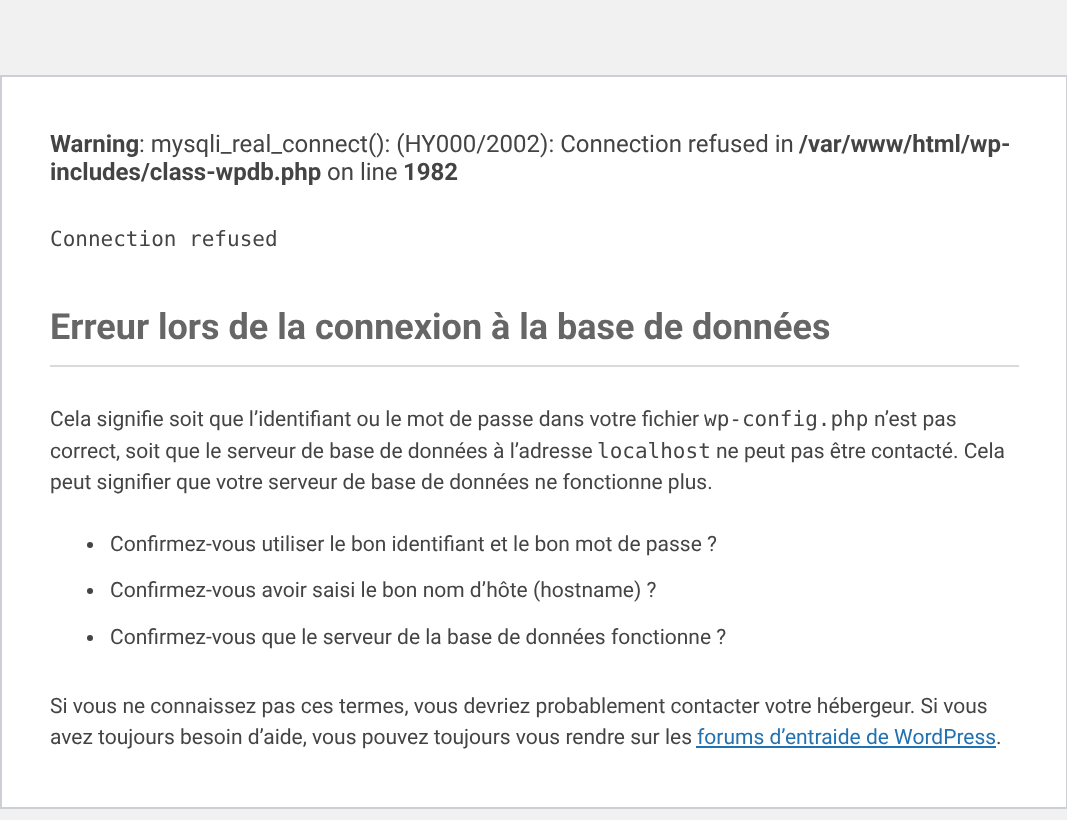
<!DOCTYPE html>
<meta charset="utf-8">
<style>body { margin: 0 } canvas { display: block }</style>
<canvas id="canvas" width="1067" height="820"></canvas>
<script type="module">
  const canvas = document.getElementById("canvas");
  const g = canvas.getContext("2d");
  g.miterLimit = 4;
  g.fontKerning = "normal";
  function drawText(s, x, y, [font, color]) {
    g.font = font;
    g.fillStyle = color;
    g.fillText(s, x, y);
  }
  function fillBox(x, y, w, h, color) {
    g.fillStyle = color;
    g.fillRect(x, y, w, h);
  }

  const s1 = ["bold 24px Roboto", "#444444"];
  const s2 = ["24px Roboto", "#444444"];
  const s3 = ["21px DejaVu Sans Mono", "#444444"];
  const s4 = ["bold 36px Roboto", "#666666"];
  const s5 = ["21px Roboto", "#444444"];
  const s6 = ["21px Roboto", "#2271B1"];

  fillBox(0, 0, 1067, 820, "#F1F1F1");
  g.fillStyle = "#FFFFFF";
  g.beginPath();
  g.rect(1, 76, 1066, 732);
  g.fill();
  g.strokeStyle = "#CCD0D4";
  g.lineWidth = 2;
  g.stroke();
  drawText("Warning", 50, 152, s1);
  drawText(": mysqli_real_connect(): (HY000/2002): Connection refused in", 139, 152, s2);
  drawText("/var/www/html/wp-", 799, 152, s1);
  drawText("includes/class-wpdb.php", 50, 180, s1);
  drawText("on line", 327, 180, s2);
  drawText("1982", 403, 180, s1);
  drawText("Connection refused", 50, 246, s3);
  fillBox(50, 365, 969, 2, "#DADADA");
  drawText("Erreur lors de la connexion à la base de données", 50, 339, s4);
  drawText("Cela signifie soit que l’identifiant ou le mot de passe dans votre fichier", 50, 426, s5);
  drawText("wp-config.php", 704, 426, s3);
  drawText("n’est pas", 874, 426, s5);
  drawText("correct, soit que le serveur de base de données à l’adresse", 50, 458, s5);
  drawText("localhost", 597, 458, s3);
  drawText("ne peut pas être contacté. Cela", 716, 458, s5);
  drawText("peut signifier que votre serveur de base de données ne fonctionne plus.", 50, 489, s5);
  g.beginPath();
  g.arc(90, 545, 3, 0, Math.PI * 2);
  g.fill();
  drawText("Confirmez-vous utiliser le bon identifiant et le bon mot de passe ?", 110, 551, s5);
  g.beginPath();
  g.arc(90, 591, 3, 0, Math.PI * 2);
  g.fill();
  drawText("Confirmez-vous avoir saisi le bon nom d’hôte (hostname) ?", 110, 597, s5);
  g.beginPath();
  g.arc(90, 638, 3, 0, Math.PI * 2);
  g.fill();
  drawText("Confirmez-vous que le serveur de la base de données fonctionne ?", 110, 644, s5);
  drawText("Si vous ne connaissez pas ces termes, vous devriez probablement contacter votre hébergeur. Si vous", 50, 713, s5);
  drawText("avez toujours besoin d’aide, vous pouvez toujours vous rendre sur les", 50, 744, s5);
  drawText("forums d’entraide de WordPress", 697, 744, s6);
  fillBox(696, 746, 300, 2, "#2271B1");
  drawText(".", 996, 744, s5);
</script>
